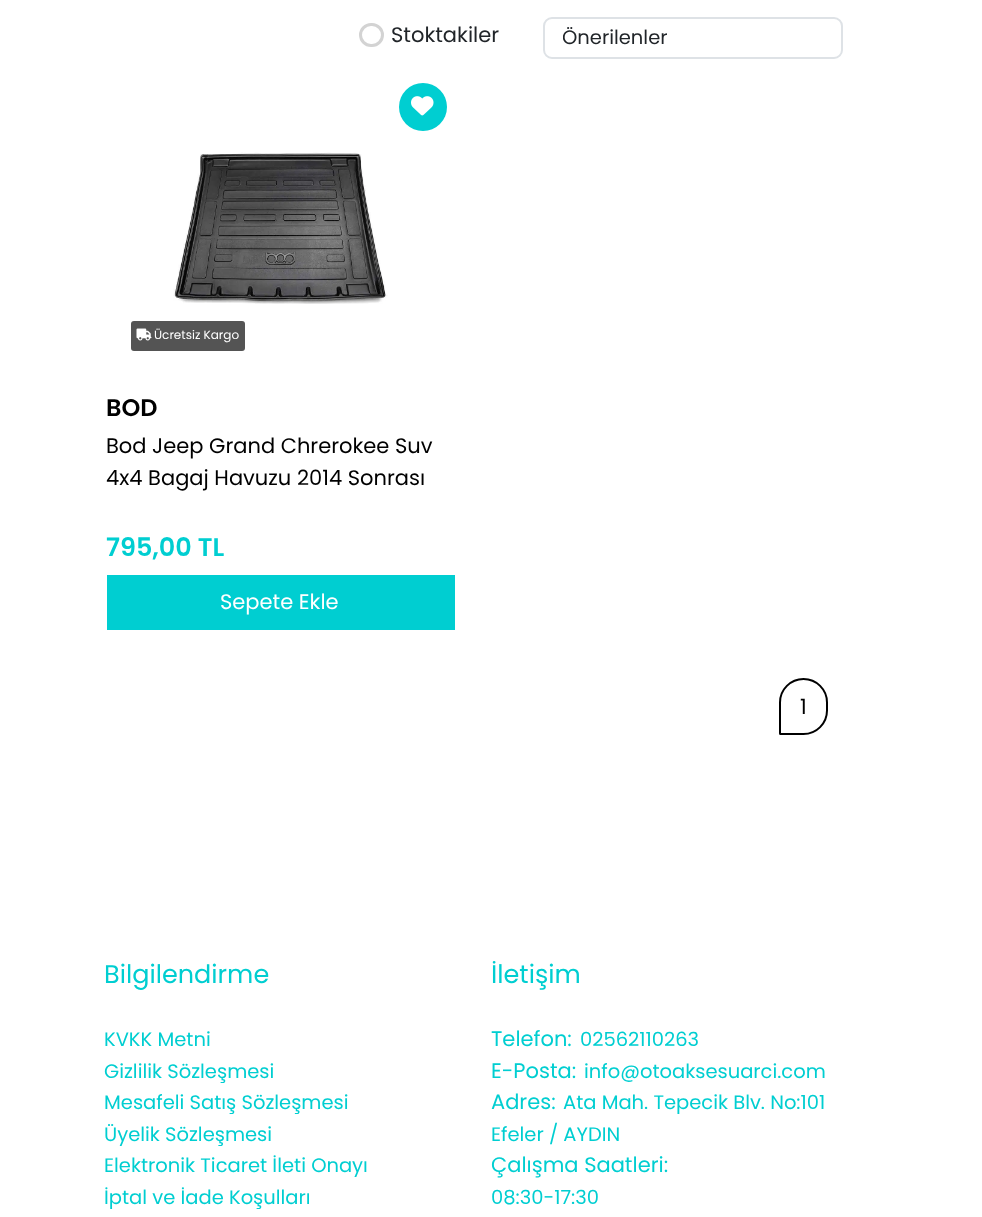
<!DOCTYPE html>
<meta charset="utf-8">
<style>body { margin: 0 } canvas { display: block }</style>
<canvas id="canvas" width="982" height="1217"></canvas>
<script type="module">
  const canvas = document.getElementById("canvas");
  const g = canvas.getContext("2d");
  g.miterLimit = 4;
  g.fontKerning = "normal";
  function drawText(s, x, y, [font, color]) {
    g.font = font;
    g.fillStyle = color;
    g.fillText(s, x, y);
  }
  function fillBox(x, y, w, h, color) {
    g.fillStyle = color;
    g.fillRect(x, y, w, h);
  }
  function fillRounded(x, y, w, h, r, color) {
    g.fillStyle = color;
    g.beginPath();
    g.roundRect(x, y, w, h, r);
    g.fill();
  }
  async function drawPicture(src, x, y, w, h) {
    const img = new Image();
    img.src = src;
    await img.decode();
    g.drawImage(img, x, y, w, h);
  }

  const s1 = ["21px Poppins", "#212529"];
  const s2 = ["19.5px Poppins", "#212529"];
  const s3 = ["12px Poppins", "#FFFFFF"];
  const s4 = ["600 24px Poppins", "#000000"];
  const s5 = ["21px Poppins", "#000000"];
  const s6 = ["600 25.5px Poppins", "#00CED1"];
  const s7 = ["21px Poppins", "#FFFFFF"];
  const s8 = ["25.5px Poppins", "#00CED1"];
  const s9 = ["19.5px Poppins", "#00CED1"];
  const s10 = ["21px Poppins", "#00CED1"];

  fillBox(0, 0, 982, 1217, "#FFFFFF");
  g.beginPath();
  g.roundRect(360.5, 24.5, 22, 21, 10.5);
  g.strokeStyle = "#D3D3D3";
  g.lineWidth = 3;
  g.stroke();
  drawText("Stoktakiler", 391, 42, s1);
  g.beginPath();
  g.roundRect(544, 18, 298, 40, 8);
  g.strokeStyle = "#DEE2E6";
  g.lineWidth = 2;
  g.stroke();
  g.save();
  g.beginPath();
  g.rect(563, 23, 261, 30);
  g.clip();
  drawText("Önerilenler", 562, 44, s2);
  g.restore();
  g.fillStyle = "#00CED1";
  g.beginPath();
  g.arc(423, 107, 24, 0, Math.PI * 2);
  g.fill();
  await drawPicture("pic1.png", 411, 96, 23, 20);
  await drawPicture("pic2.png", 173, 152, 215, 152);
  fillRounded(131, 321, 114, 30, 3, "#545454");
  await drawPicture("pic3.png", 136, 328, 16, 13);
  drawText("Ücretsiz Kargo", 154, 339, s3);
  drawText("BOD", 106, 416, s4);
  drawText("Bod Jeep Grand Chrerokee Suv", 106, 453, s5);
  drawText("4x4 Bagaj Havuzu 2014 Sonrası", 106, 485, s5);
  drawText("795,00 TL", 106, 556, s6);
  fillBox(107, 575, 348, 55, "#00CED1");
  drawText("Sepete Ekle", 220, 609, s7);
  g.beginPath();
  g.roundRect(780, 679, 47, 55, [23.5, 23.5, 23.5, 0.5]);
  g.strokeStyle = "#000000";
  g.stroke();
  drawText("1", 800, 714, s5);
  drawText("Bilgilendirme", 104, 983, s8);
  drawText("KVKK Metni", 104, 1046, s9);
  drawText("Gizlilik Sözleşmesi", 104, 1078, s9);
  drawText("Mesafeli Satış Sözleşmesi", 104, 1109, s9);
  drawText("Üyelik Sözleşmesi", 104, 1141, s9);
  drawText("Elektronik Ticaret İleti Onayı", 104, 1172, s9);
  drawText("İptal ve İade Koşulları", 104, 1204, s9);
  drawText("İletişim", 491, 983, s8);
  drawText("Telefon:", 491, 1046, s10);
  drawText("02562110263", 580, 1046, s9);
  drawText("E-Posta:", 491, 1078, s10);
  drawText("info@otoaksesuarci.com", 584, 1078, s9);
  drawText("Adres:", 491, 1109, s10);
  drawText("Ata Mah. Tepecik Blv. No:101", 563, 1109, s9);
  drawText("Efeler / AYDIN", 491, 1141, s9);
  drawText("Çalışma Saatleri:", 491, 1172, s10);
  drawText("08:30-17:30", 491, 1204, s9);
</script>
